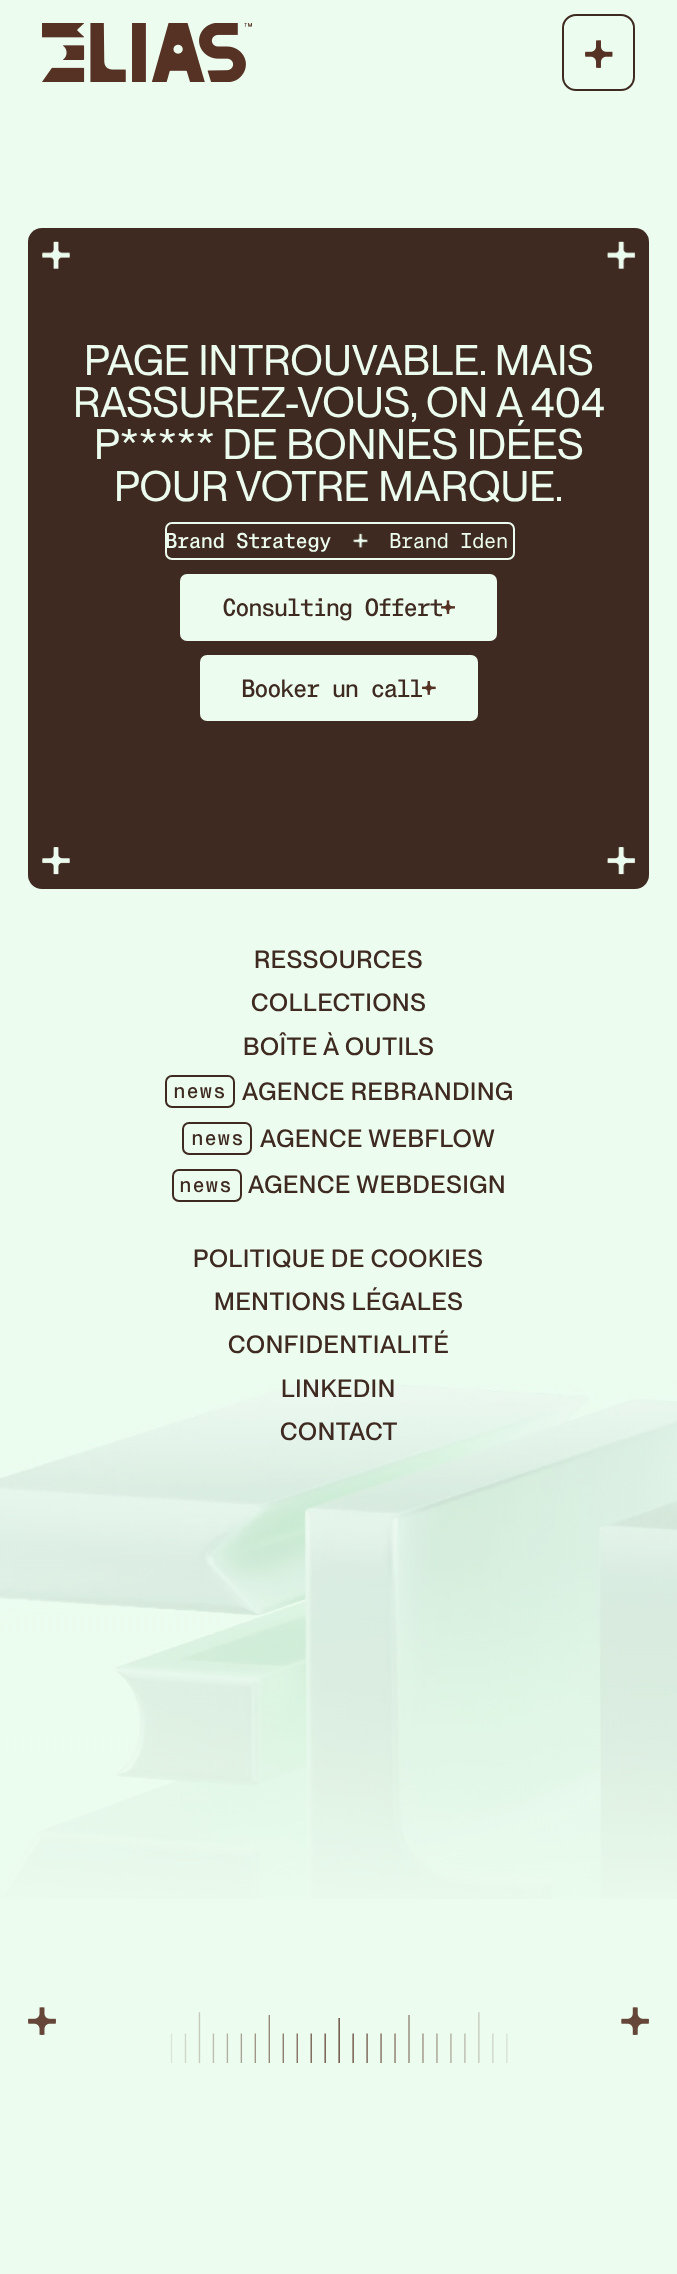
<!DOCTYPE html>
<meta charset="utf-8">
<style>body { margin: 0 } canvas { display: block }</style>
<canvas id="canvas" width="677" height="2274"></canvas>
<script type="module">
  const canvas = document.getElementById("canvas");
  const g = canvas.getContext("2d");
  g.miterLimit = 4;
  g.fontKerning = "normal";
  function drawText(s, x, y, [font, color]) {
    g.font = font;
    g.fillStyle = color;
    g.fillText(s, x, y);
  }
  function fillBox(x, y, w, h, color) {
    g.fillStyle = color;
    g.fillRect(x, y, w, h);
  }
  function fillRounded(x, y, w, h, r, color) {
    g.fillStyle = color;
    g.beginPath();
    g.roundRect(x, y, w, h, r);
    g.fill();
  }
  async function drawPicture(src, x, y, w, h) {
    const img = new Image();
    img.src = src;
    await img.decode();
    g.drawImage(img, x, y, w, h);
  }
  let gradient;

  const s1 = ["42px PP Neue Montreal", "#ECFDEF"];
  const s2 = ["500 21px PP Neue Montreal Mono", "#ECFDEF"];
  const s3 = ["21px PP Neue Montreal Mono", "#ECFDEF"];
  const s4 = ["500 24.5px PP Neue Montreal Mono", "#3F2A21"];
  const s5 = ["500 24.5px PP Neue Montreal", "#3F2A21"];
  const s6 = ["500 21px PP Neue Montreal Mono", "#3F2A21"];

  fillBox(0, 0, 677, 2274, "#ECFDEF");
  await drawPicture("pic1.png", 42, 23, 210, 59);
  g.beginPath();
  g.roundRect(563, 15, 71, 75, 13);
  g.strokeStyle = "#3F2A21";
  g.lineWidth = 2;
  g.stroke();
  await drawPicture("pic2.png", 585, 40, 28, 28);
  fillRounded(28, 228, 621, 661, 14, "#3F2A21");
  await drawPicture("pic3.png", 42, 241, 28, 28);
  await drawPicture("pic4.png", 607, 241, 29, 28);
  drawText("PAGE INTROUVABLE. MAIS", 84, 375, s1);
  drawText("RASSUREZ-VOUS, ON A 404", 73, 417, s1);
  drawText("P***** DE BONNES IDÉES", 94, 459, s1);
  drawText("POUR VOTRE MARQUE.", 114, 501, s1);
  g.beginPath();
  g.roundRect(166, 523, 348, 36, 6);
  g.strokeStyle = "#ECFDEF";
  g.stroke();
  g.letterSpacing = "-0.75px";
  drawText("Brand Strategy", 165, 548, s2);
  await drawPicture("pic5.png", 353, 533, 15, 15);
  drawText("Brand Iden", 389, 548, s3);
  fillRounded(180, 574, 317, 67, 7, "#ECFDEF");
  g.letterSpacing = "-1.75px";
  drawText("Consulting Offert", 222, 616, s4);
  await drawPicture("pic6.png", 441, 600, 14, 14);
  fillRounded(200, 655, 278, 66, 7, "#ECFDEF");
  drawText("Booker un call", 241, 697, s4);
  await drawPicture("pic7.png", 422, 681, 14, 14);
  await drawPicture("pic8.png", 42, 847, 28, 28);
  await drawPicture("pic9.png", 607, 847, 29, 28);
  g.letterSpacing = "0.7px";
  drawText("RESSOURCES", 254, 968, s5);
  drawText("COLLECTIONS", 251, 1011, s5);
  drawText("BOÎTE À OUTILS", 243, 1055, s5);
  g.beginPath();
  g.roundRect(166, 1076, 68, 31, 6);
  g.strokeStyle = "#3F2A21";
  g.stroke();
  drawText("news", 173, 1098, s6);
  drawText("AGENCE REBRANDING", 242, 1100, s5);
  g.beginPath();
  g.roundRect(183, 1123, 68, 31, 6);
  g.stroke();
  drawText("news", 191, 1145, s6);
  drawText("AGENCE WEBFLOW", 260, 1147, s5);
  g.beginPath();
  g.roundRect(173, 1170, 68, 31, 6);
  g.stroke();
  drawText("news", 179, 1192, s6);
  drawText("AGENCE WEBDESIGN", 248, 1193, s5);
  drawText("POLITIQUE DE COOKIES", 193, 1267, s5);
  drawText("MENTIONS LÉGALES", 214, 1310, s5);
  drawText("CONFIDENTIALITÉ", 228, 1353, s5);
  await drawPicture("pic10.png", 0, 1381, 677, 518);
  drawText("LINKEDIN", 281, 1397, s5);
  drawText("CONTACT", 280, 1440, s5);
  await drawPicture("pic11.png", 28, 2007, 28, 28);
  await drawPicture("pic12.png", 170, 2012, 338, 51);
  gradient = g.createLinearGradient(165, 2020, 340, 2020);
  gradient.addColorStop(0, "rgba(236, 253, 239, 0.9)");
  gradient.addColorStop(1, "rgba(236, 253, 239, 0)");
  g.fillStyle = gradient;
  g.fillRect(170, 2012, 156, 51);
  gradient = g.createLinearGradient(515, 2020, 340, 2020);
  gradient.addColorStop(0, "rgba(236, 253, 239, 0.9)");
  gradient.addColorStop(1, "rgba(236, 253, 239, 0)");
  g.fillStyle = gradient;
  g.fillRect(352, 2012, 156, 51);
  await drawPicture("pic13.png", 621, 2007, 28, 28);
</script>
